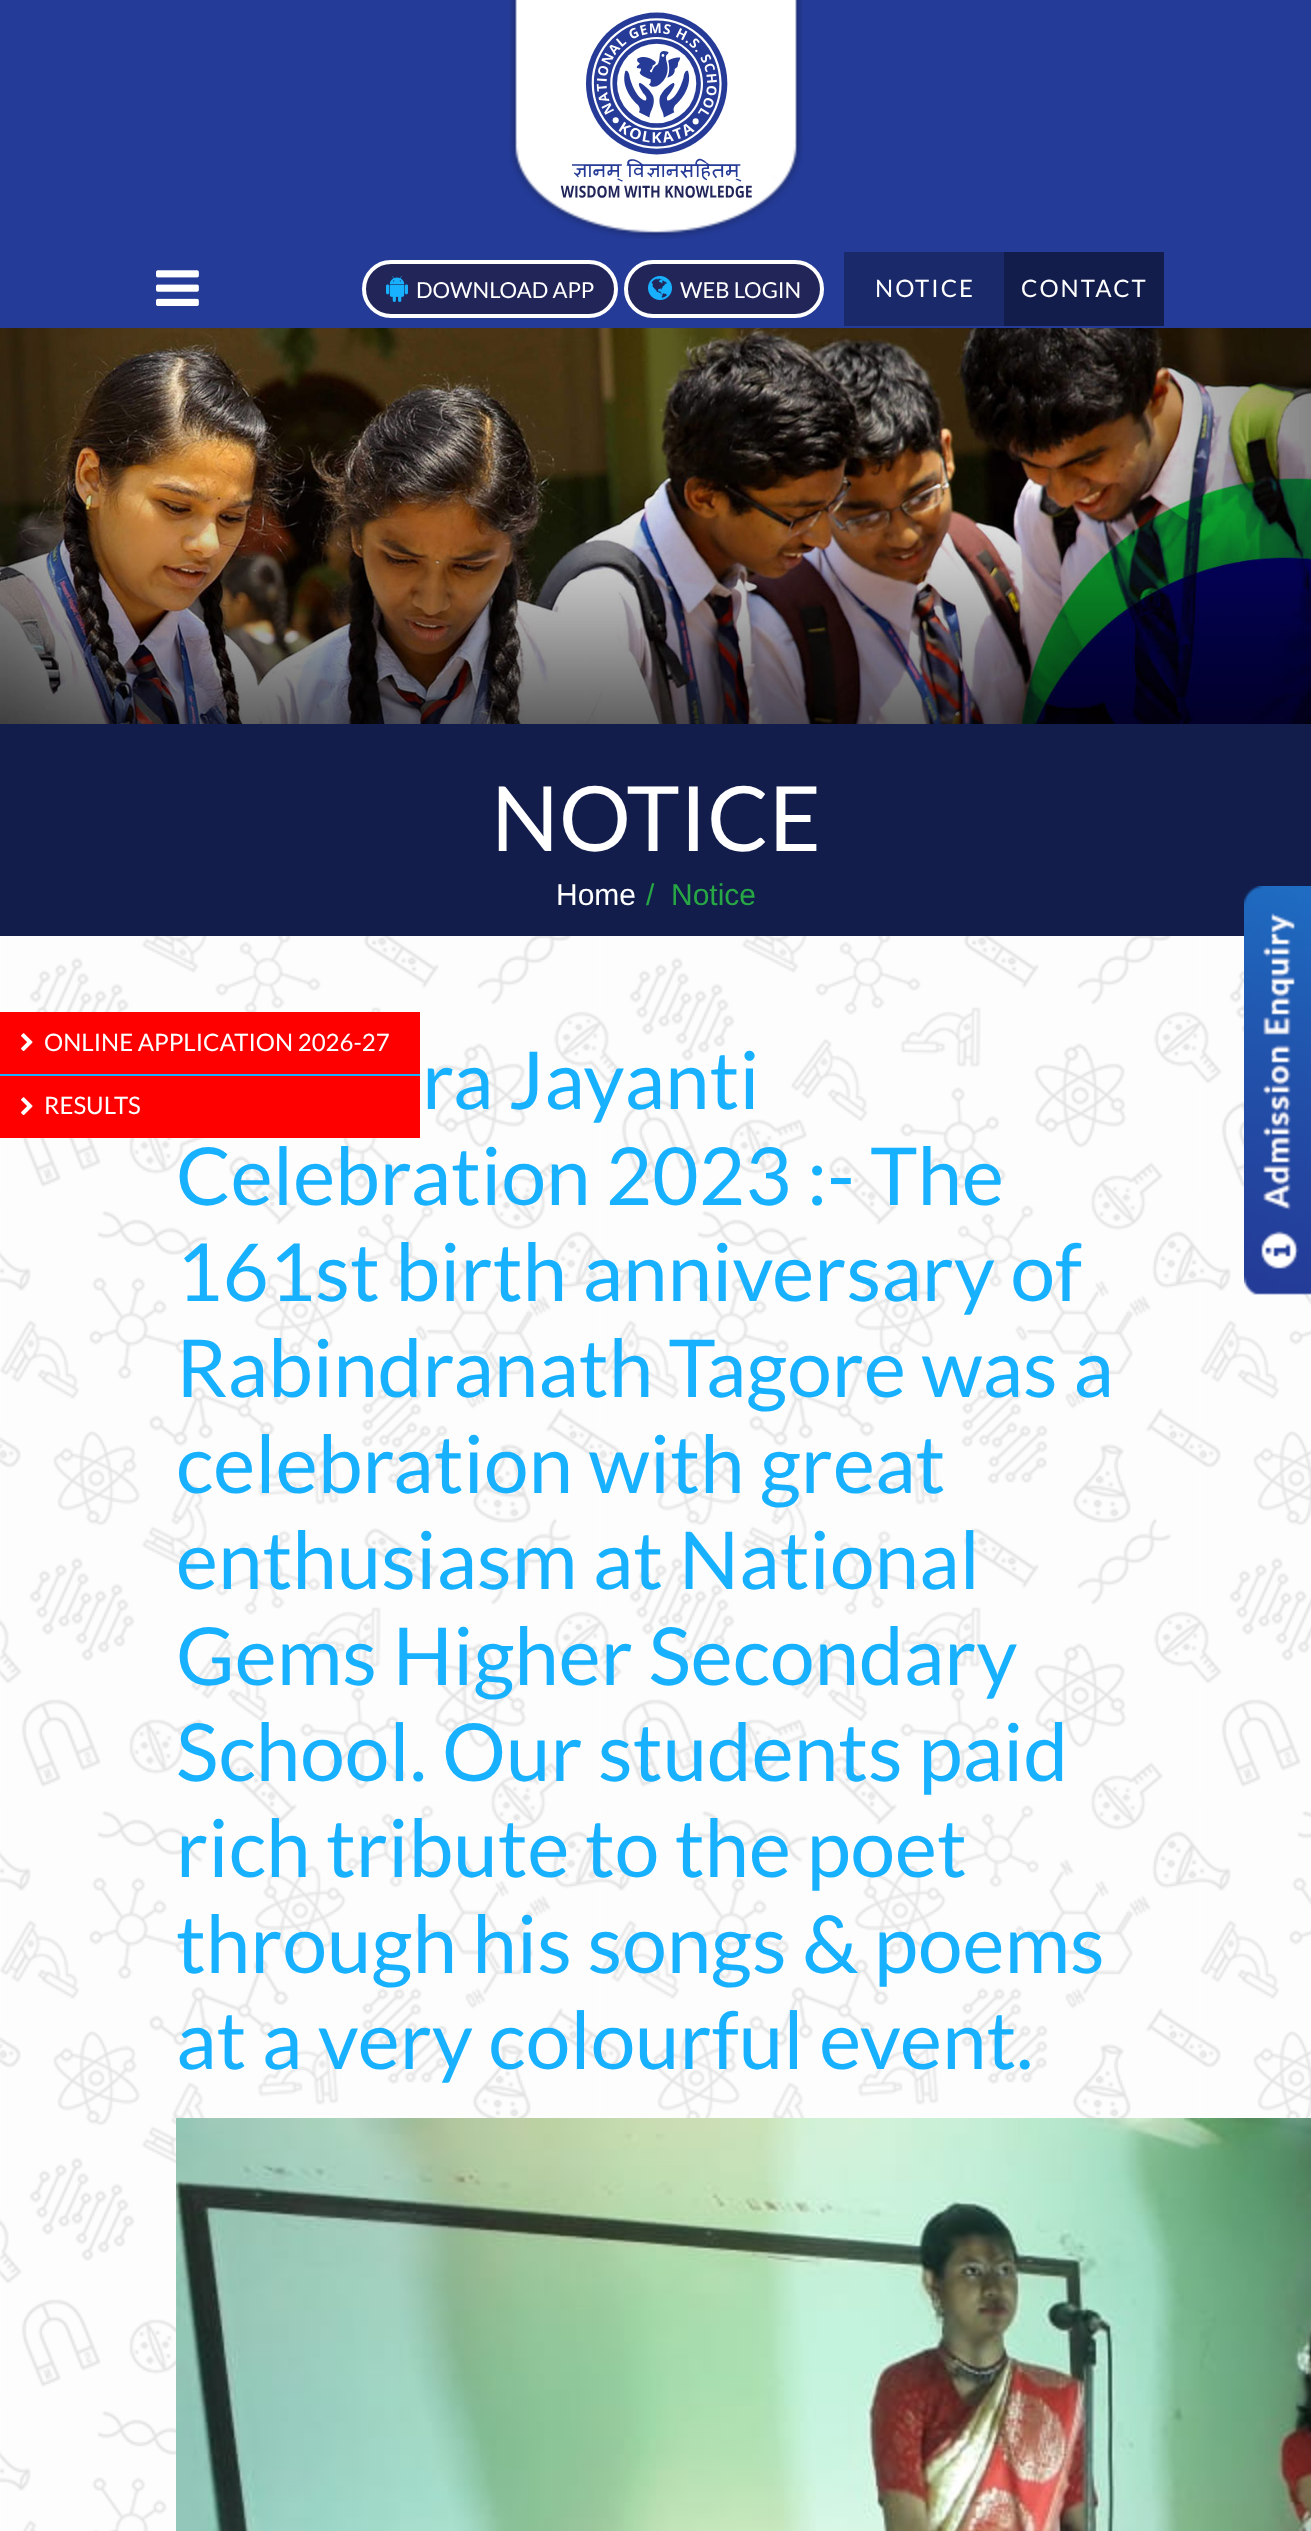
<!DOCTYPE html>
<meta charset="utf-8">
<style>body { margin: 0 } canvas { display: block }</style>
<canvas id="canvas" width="1311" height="2531"></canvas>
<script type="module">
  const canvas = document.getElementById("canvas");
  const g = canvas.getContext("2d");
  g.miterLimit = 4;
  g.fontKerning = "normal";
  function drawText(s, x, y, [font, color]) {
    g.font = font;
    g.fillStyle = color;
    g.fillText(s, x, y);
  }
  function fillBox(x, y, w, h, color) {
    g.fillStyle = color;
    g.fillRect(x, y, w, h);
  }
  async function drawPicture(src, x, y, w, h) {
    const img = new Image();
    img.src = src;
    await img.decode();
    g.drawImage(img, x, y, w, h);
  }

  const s1 = ["22px Lato", "#FFFFFF"];
  const s2 = ["24px Lato", "#FFFFFF"];
  const s3 = ["90px Lato", "#FFFFFF"];
  const s4 = ["30px Liberation Sans", "#FFFFFF"];
  const s5 = ["30px Liberation Sans", "#28A745"];
  const s6 = ["80px Lato", "#18B1FF"];

  fillBox(0, 0, 1311, 2531, "#FFFFFF");
  await drawPicture("pic1.png", 0, 936, 1311, 1595);
  fillBox(0, 0, 1311, 328, "#243B97");
  await drawPicture("pic2.png", 156, 270, 43, 36);
  await drawPicture("pic3.png", 509, 0, 294, 239);
  await drawPicture("pic4.png", 560, 12, 192, 186);
  g.fillStyle = "#212558";
  g.beginPath();
  g.roundRect(364, 262, 252, 54, 27);
  g.fill();
  g.strokeStyle = "#FFFFFF";
  g.lineWidth = 4;
  g.stroke();
  await drawPicture("pic5.png", 386, 276, 22, 26);
  drawText("DOWNLOAD APP", 416, 298, s1);
  g.fillStyle = "#212558";
  g.beginPath();
  g.roundRect(626, 262, 196, 54, 27);
  g.fill();
  g.stroke();
  await drawPicture("pic6.png", 648, 276, 24, 24);
  drawText("WEB LOGIN", 680, 298, s1);
  fillBox(844, 252, 160, 74, "#192969");
  g.letterSpacing = "2px";
  drawText("NOTICE", 875, 297, s2);
  fillBox(1004, 252, 160, 74, "#121D4B");
  drawText("CONTACT", 1021, 297, s2);
  await drawPicture("pic7.png", 0, 328, 1311, 396);
  fillBox(0, 724, 1311, 212, "#121D4B");
  g.letterSpacing = "0px";
  drawText("NOTICE", 491, 851, s3);
  drawText("Home", 556, 905, s4);
  drawText("/", 646, 905, s5);
  drawText("Notice", 671, 905, s5);
  drawText("ra Jayanti", 422, 1109, s6);
  drawText("Celebration 2023 :- The", 176, 1205, s6);
  drawText("161st birth anniversary of", 176, 1301, s6);
  drawText("Rabindranath Tagore was a", 176, 1397, s6);
  drawText("celebration with great", 176, 1493, s6);
  drawText("enthusiasm at National", 176, 1589, s6);
  drawText("Gems Higher Secondary", 176, 1685, s6);
  drawText("School. Our students paid", 176, 1781, s6);
  drawText("rich tribute to the poet", 176, 1877, s6);
  drawText("through his songs & poems", 176, 1973, s6);
  drawText("at a very colourful event.", 176, 2069, s6);
  await drawPicture("pic8.png", 176, 2118, 1135, 413);
  await drawPicture("pic9.png", 1244, 886, 67, 409);
  fillBox(0, 1012, 420, 62, "#FF0000");
  fillBox(0, 1074, 420, 2, "#18B1FF");
  await drawPicture("pic10.png", 21, 1033, 12, 19);
  drawText("ONLINE APPLICATION 2026-27", 44, 1051, s2);
  fillBox(0, 1076, 420, 62, "#FF0000");
  await drawPicture("pic10.png", 21, 1097, 12, 19);
  drawText("RESULTS", 44, 1114, s2);
</script>
